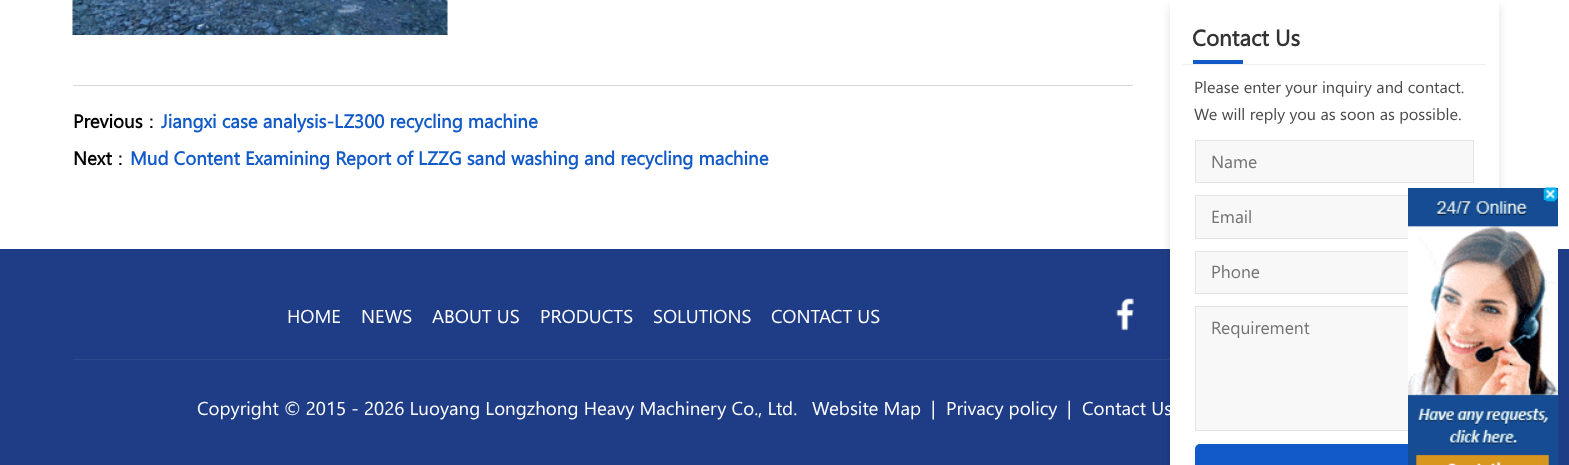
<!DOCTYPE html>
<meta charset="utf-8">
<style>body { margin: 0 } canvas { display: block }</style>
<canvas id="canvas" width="1569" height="465"></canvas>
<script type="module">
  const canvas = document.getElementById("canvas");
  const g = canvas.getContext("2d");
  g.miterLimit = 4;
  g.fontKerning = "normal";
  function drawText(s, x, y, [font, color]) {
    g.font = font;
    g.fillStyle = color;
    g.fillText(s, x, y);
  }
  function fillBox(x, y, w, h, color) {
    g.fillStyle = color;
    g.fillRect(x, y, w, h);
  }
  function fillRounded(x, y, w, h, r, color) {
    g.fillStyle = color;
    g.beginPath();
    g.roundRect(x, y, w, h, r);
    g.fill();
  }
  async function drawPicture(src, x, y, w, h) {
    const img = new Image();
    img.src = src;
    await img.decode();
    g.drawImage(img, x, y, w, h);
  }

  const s1 = ["bold 18.75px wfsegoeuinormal", "#000000"];
  const s2 = ["500 18.75px WenQuanYi Zen Hei", "#000000"];
  const s3 = ["bold 18.75px wfsegoeuinormal", "#115AC7"];
  const s4 = ["bold 22.5px wfsegoeuinormal", "#333333"];
  const s5 = ["16.25px wfsegoeuinormal", "#4A4A4A"];
  const s6 = ["17.5px wfsegoeuinormal", "#757575"];
  const s7 = ["18.75px wfsegoeuinormal", "#FFFFFF"];

  fillBox(0, 0, 1569, 465, "#FFFFFF");
  await drawPicture("pic1.png", 72, 0, 376, 35);
  fillBox(73, 85, 1060, 1, "#D8D8D8");
  drawText("Previous", 73, 128, s1);
  drawText("：", 142, 128, s2);
  drawText("Jiangxi case analysis-LZ300 recycling machine", 161, 128, s3);
  drawText("Next", 73, 165, s1);
  drawText("：", 111, 165, s2);
  drawText("Mud Content Examining Report of LZZG sand washing and recycling machine", 130, 165, s3);
  fillBox(0, 249, 1569, 216, "#1F3D86");
  fillBox(73, 359, 1097, 1, "#2C498D");
  g.fillStyle = "rgba(3, 3, 3, 0.12)";
  g.filter = "blur(5px)";
  g.beginPath();
  g.rect(1170, 6, 329, 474);
  g.fill();
  g.filter = "none";
  fillBox(1170, 0, 329, 465, "#FFFFFF");
  fillBox(1183, 64, 303, 1, "#EEEEEE");
  drawText("Contact Us", 1192, 46, s4);
  fillBox(1193, 60, 50, 4, "#115AC7");
  drawText("Please enter your inquiry and contact.", 1194, 93, s5);
  drawText("We will reply you as soon as possible.", 1194, 120, s5);
  g.fillStyle = "#F8F8F8";
  g.beginPath();
  g.rect(1195.5, 140.5, 278, 42);
  g.fill();
  g.strokeStyle = "#E4E4E4";
  g.stroke();
  drawText("Name", 1211, 168, s6);
  fillBox(1196, 196, 212, 42, "#F8F8F8");
  g.strokeRect(1195.5, 195.5, 278, 43);
  drawText("Email", 1211, 223, s6);
  fillBox(1196, 252, 212, 41, "#F8F8F8");
  g.strokeRect(1195.5, 251.5, 278, 42);
  drawText("Phone", 1211, 278, s6);
  fillBox(1196, 307, 212, 123, "#F8F8F8");
  g.strokeRect(1195.5, 306.5, 278, 124);
  drawText("Requirement", 1211, 334, s6);
  fillRounded(1195, 444, 279, 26, 5, "#115AC7");
  await drawPicture("pic3.png", 1408, 188, 150, 277);
  await drawPicture("pic2.png", 1543, 187, 15, 15);
  drawText("HOME", 287, 323, s7);
  drawText("NEWS", 361, 323, s7);
  drawText("ABOUT US", 432, 323, s7);
  drawText("PRODUCTS", 540, 323, s7);
  drawText("SOLUTIONS", 653, 323, s7);
  drawText("CONTACT US", 771, 323, s7);
  await drawPicture("pic4.png", 1116, 298, 18, 33);
  drawText("Copyright © 2015 - 2026 Luoyang Longzhong Heavy Machinery Co., Ltd.", 197, 415, s7);
  drawText("Website Map", 812, 415, s7);
  drawText("|", 931, 415, s7);
  drawText("Privacy policy", 946, 415, s7);
  drawText("|", 1067, 415, s7);
  drawText("Contact Us", 1082, 415, s7);
</script>
